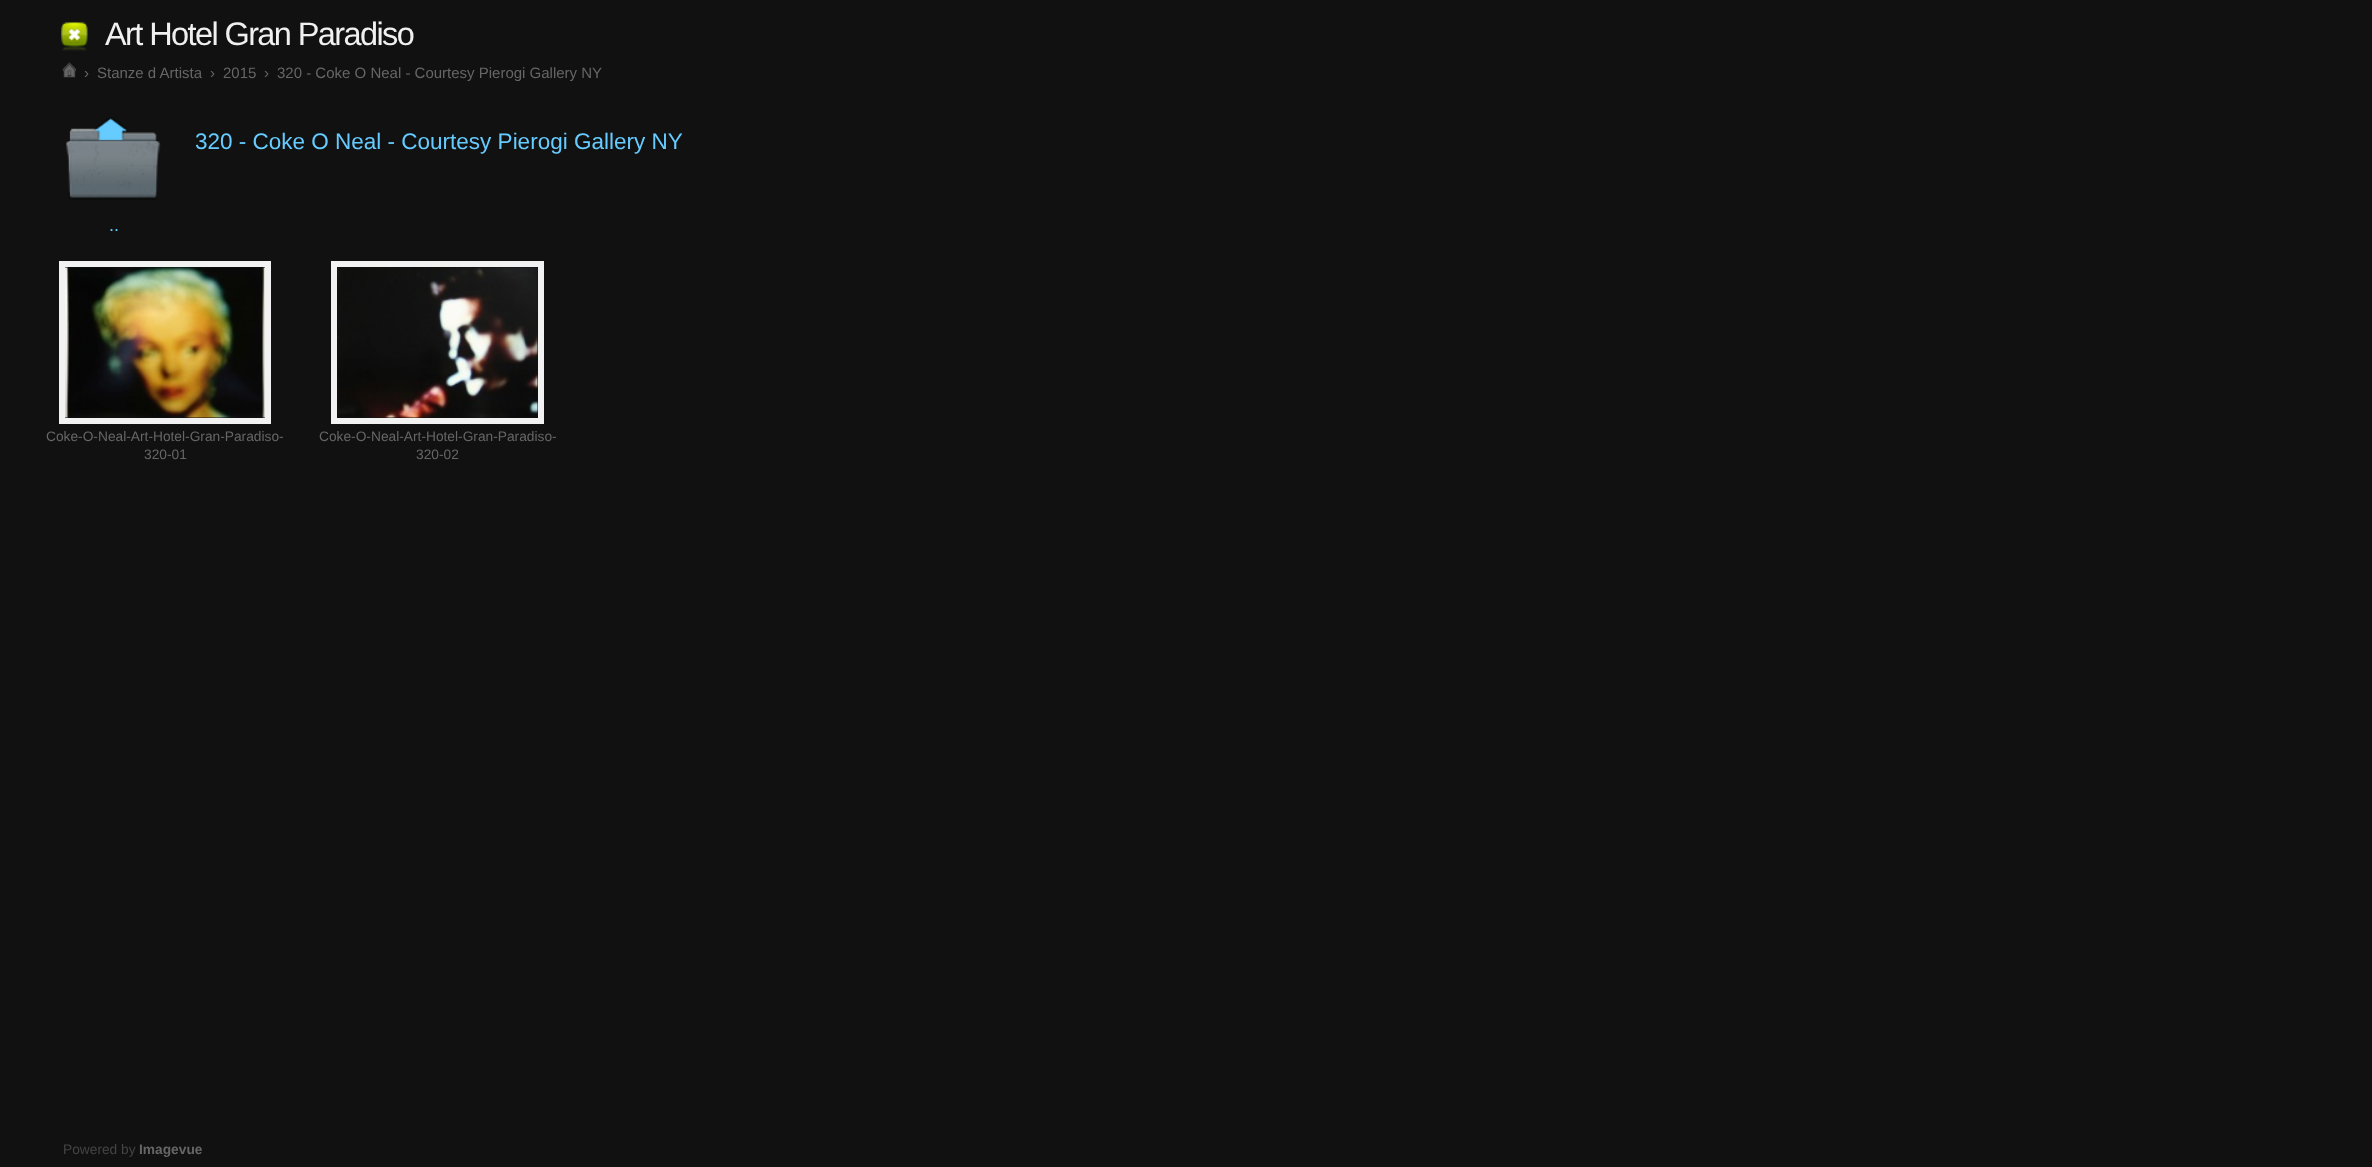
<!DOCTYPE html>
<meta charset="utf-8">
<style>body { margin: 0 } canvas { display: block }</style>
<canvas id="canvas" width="2372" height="1167"></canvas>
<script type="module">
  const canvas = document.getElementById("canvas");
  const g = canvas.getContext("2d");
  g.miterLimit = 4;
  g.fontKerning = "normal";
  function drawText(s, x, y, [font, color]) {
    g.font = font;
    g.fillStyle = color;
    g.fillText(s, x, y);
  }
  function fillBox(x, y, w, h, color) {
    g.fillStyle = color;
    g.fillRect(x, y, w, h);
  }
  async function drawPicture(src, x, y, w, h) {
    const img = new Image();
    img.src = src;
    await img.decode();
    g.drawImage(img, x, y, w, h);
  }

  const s1 = ["32.5px Liberation Sans", "#F0F0F0"];
  const s2 = ["15px Liberation Sans", "#666666"];
  const s3 = ["22.5px Liberation Sans", "#66CCFF"];
  const s4 = ["18px Liberation Sans", "#66CCFF"];
  const s5 = ["13.75px Liberation Sans", "#666666"];
  const s6 = ["13.75px Liberation Sans", "#444444"];
  const s7 = ["bold 13.75px Liberation Sans", "#666666"];

  fillBox(0, 0, 2372, 1167, "#111111");
  await drawPicture("pic1.png", 61, 22, 27, 29);
  g.letterSpacing = "-1.6px";
  drawText("Art Hotel Gran Paradiso", 105, 45, s1);
  await drawPicture("pic2.png", 62, 62, 14, 16);
  g.letterSpacing = "0px";
  drawText("›", 84, 78, s2);
  drawText("Stanze d Artista", 97, 78, s2);
  drawText("›", 210, 78, s2);
  drawText("2015", 223, 78, s2);
  drawText("›", 264, 78, s2);
  drawText("320 - Coke O Neal - Courtesy Pierogi Gallery NY", 277, 78, s2);
  drawText("320 - Coke O Neal - Courtesy Pierogi Gallery NY", 195, 149, s3);
  await drawPicture("pic3.png", 66, 117, 95, 83);
  drawText("..", 109, 231, s4);
  g.strokeStyle = "#F2F2F2";
  g.lineWidth = 6;
  g.strokeRect(62, 264, 206, 157);
  await drawPicture("pic4.png", 65, 267, 200, 151);
  drawText("Coke-O-Neal-Art-Hotel-Gran-Paradiso-", 46, 441, s5);
  drawText("320-01", 144, 459, s5);
  g.strokeRect(334, 264, 207, 157);
  await drawPicture("pic5.png", 337, 267, 201, 151);
  drawText("Coke-O-Neal-Art-Hotel-Gran-Paradiso-", 319, 441, s5);
  drawText("320-02", 416, 459, s5);
  drawText("Powered by", 63, 1154, s6);
  drawText("Imagevue", 139, 1154, s7);
</script>
